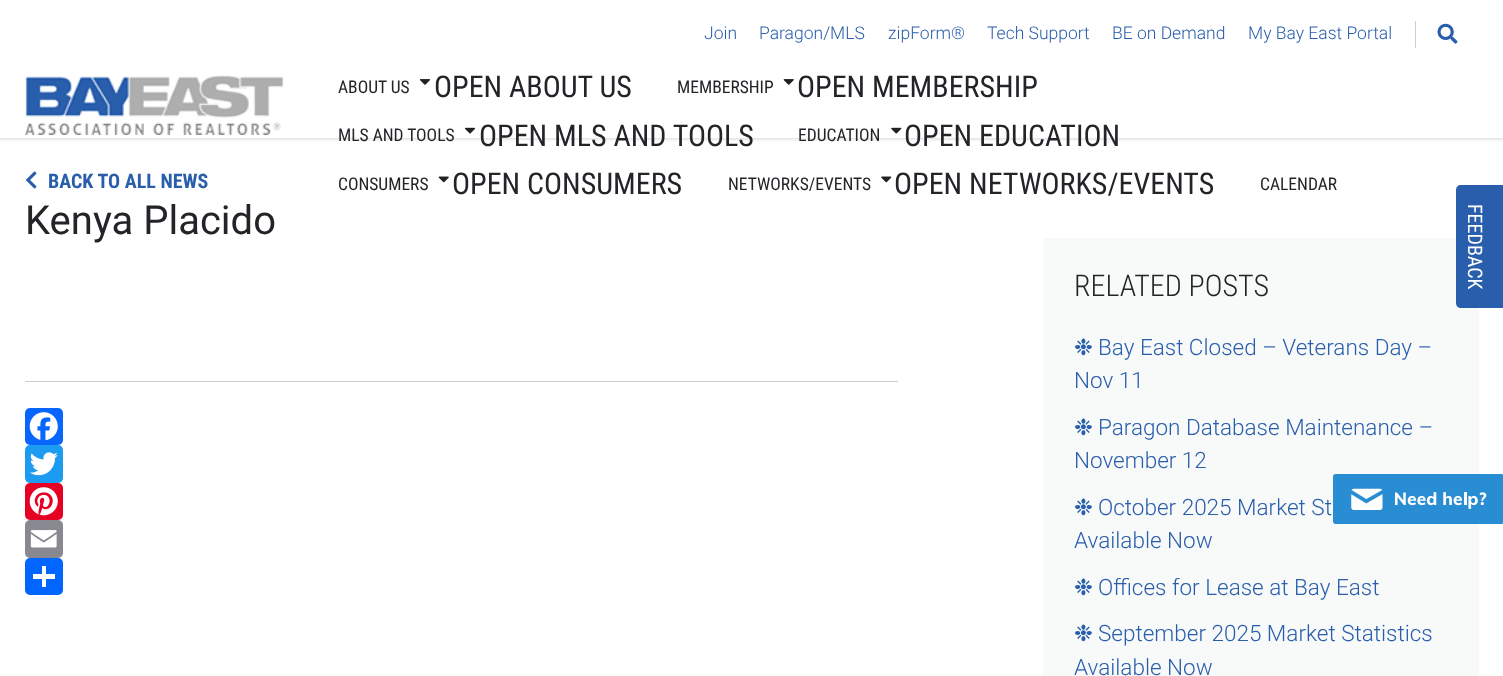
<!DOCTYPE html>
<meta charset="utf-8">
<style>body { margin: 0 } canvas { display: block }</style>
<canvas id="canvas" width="1503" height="676"></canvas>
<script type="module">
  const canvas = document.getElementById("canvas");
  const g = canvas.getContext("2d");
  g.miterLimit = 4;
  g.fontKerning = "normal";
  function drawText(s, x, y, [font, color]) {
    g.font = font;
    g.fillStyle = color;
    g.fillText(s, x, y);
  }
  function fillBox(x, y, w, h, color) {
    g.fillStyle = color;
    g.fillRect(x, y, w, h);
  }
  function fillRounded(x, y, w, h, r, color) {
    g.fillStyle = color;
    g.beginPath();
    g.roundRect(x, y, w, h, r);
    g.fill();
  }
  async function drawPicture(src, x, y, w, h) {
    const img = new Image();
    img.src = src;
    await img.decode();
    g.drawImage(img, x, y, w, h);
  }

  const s1 = ["300 17.5px Roboto", "#295EAC"];
  const s2 = ["17.5px Roboto Condensed", "#222428"];
  const s3 = ["30px Roboto Condensed", "#222428"];
  const s4 = ["bold 20px Roboto Condensed", "#295EAC"];
  const s5 = ["40px Roboto", "#222428"];
  const s6 = ["300 30px Roboto Condensed", "#222428"];
  const s7 = ["22.5px DejaVu Sans", "#295EAC"];
  const s8 = ["300 22.5px Roboto", "#295EAC"];

  fillBox(0, 0, 1503, 676, "#FFFFFF");
  g.fillStyle = "rgba(0, 0, 0, 0.1)";
  g.filter = "blur(1px)";
  g.beginPath();
  g.rect(0, 3, 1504, 137);
  g.fill();
  g.filter = "none";
  fillBox(0, 2, 1503, 136, "#FFFFFF");
  await drawPicture("pic1.png", 25, 75, 259, 60);
  drawText("Join", 704, 39, s1);
  drawText("Paragon/MLS", 759, 39, s1);
  drawText("zipForm®", 888, 39, s1);
  drawText("Tech Support", 987, 39, s1);
  drawText("BE on Demand", 1112, 39, s1);
  fillBox(1415, 21, 1, 27, "#CECECE");
  drawText("My Bay East Portal", 1248, 39, s1);
  await drawPicture("pic2.png", 1437, 23, 21, 21);
  drawText("ABOUT US", 338, 93, s2);
  await drawPicture("pic3.png", 419, 79, 12, 6);
  drawText("OPEN ABOUT US", 434, 97, s3);
  drawText("MEMBERSHIP", 677, 93, s2);
  await drawPicture("pic4.png", 783, 79, 11, 6);
  drawText("OPEN MEMBERSHIP", 797, 97, s3);
  drawText("MLS AND TOOLS", 338, 141, s2);
  await drawPicture("pic5.png", 464, 127, 12, 7);
  drawText("OPEN MLS AND TOOLS", 479, 146, s3);
  drawText("EDUCATION", 798, 141, s2);
  await drawPicture("pic6.png", 891, 127, 11, 7);
  drawText("OPEN EDUCATION", 904, 146, s3);
  drawText("CONSUMERS", 338, 190, s2);
  await drawPicture("pic7.png", 438, 176, 11, 7);
  drawText("OPEN CONSUMERS", 452, 194, s3);
  drawText("NETWORKS/EVENTS", 728, 190, s2);
  await drawPicture("pic8.png", 881, 176, 11, 7);
  drawText("OPEN NETWORKS/EVENTS", 894, 194, s3);
  drawText("CALENDAR", 1260, 190, s2);
  await drawPicture("pic9.png", 26, 171, 11, 18);
  drawText("BACK TO ALL NEWS", 48, 188, s4);
  drawText("Kenya Placido", 25, 234, s5);
  fillBox(25, 381, 873, 1, "#CECECE");
  fillRounded(25, 408, 38, 37, 5, "#0866FF");
  await drawPicture("pic10.png", 29, 412, 29, 29);
  fillRounded(25, 445, 38, 38, 5, "#1D9BF0");
  await drawPicture("pic11.png", 29, 452, 29, 24);
  fillRounded(25, 483, 38, 37, 5, "#E60023");
  await drawPicture("pic12.png", 29, 487, 29, 29);
  fillRounded(25, 520, 38, 38, 5, "#888990");
  await drawPicture("pic13.png", 30, 530, 27, 18);
  fillRounded(25, 558, 38, 37, 5, "#0166FF");
  fillBox(42, 566, 4, 21, "#FFFFFF");
  fillBox(33, 574, 22, 5, "#FFFFFF");
  fillBox(1043, 238, 436, 438, "#F8F9F9");
  drawText("RELATED POSTS", 1074, 296, s6);
  drawText("❉", 1074, 355, s7);
  drawText("Bay East Closed – Veterans Day –", 1098, 355, s8);
  drawText("Nov 11", 1074, 388, s8);
  drawText("❉", 1074, 435, s7);
  drawText("Paragon Database Maintenance –", 1098, 435, s8);
  drawText("November 12", 1074, 468, s8);
  drawText("❉", 1074, 515, s7);
  drawText("October 2025 Market St", 1098, 515, s8);
  drawText("Available Now", 1074, 548, s8);
  drawText("❉", 1074, 595, s7);
  drawText("Offices for Lease at Bay East", 1098, 595, s8);
  drawText("❉", 1074, 641, s7);
  drawText("September 2025 Market Statistics", 1098, 641, s8);
  drawText("Available Now", 1074, 675, s8);
  g.beginPath();
  g.moveTo(1503, 185);
  g.lineTo(1503, 308);
  g.lineTo(1461, 308);
  g.bezierCurveTo(1458, 308, 1456, 306, 1456, 303);
  g.lineTo(1456, 190);
  g.bezierCurveTo(1456, 187, 1458, 185, 1461, 185);
  g.closePath();
  g.fill();
  g.font = "20px Roboto Condensed";
  g.fillStyle = "#FFFFFF";
  g.save();
  g.translate(1468, 204);
  g.rotate(90 * Math.PI / 180);
  g.fillText("FEEDBACK", 0, 0);
  g.restore();
  await drawPicture("pic14.png", 1333, 474, 170, 50);
</script>
